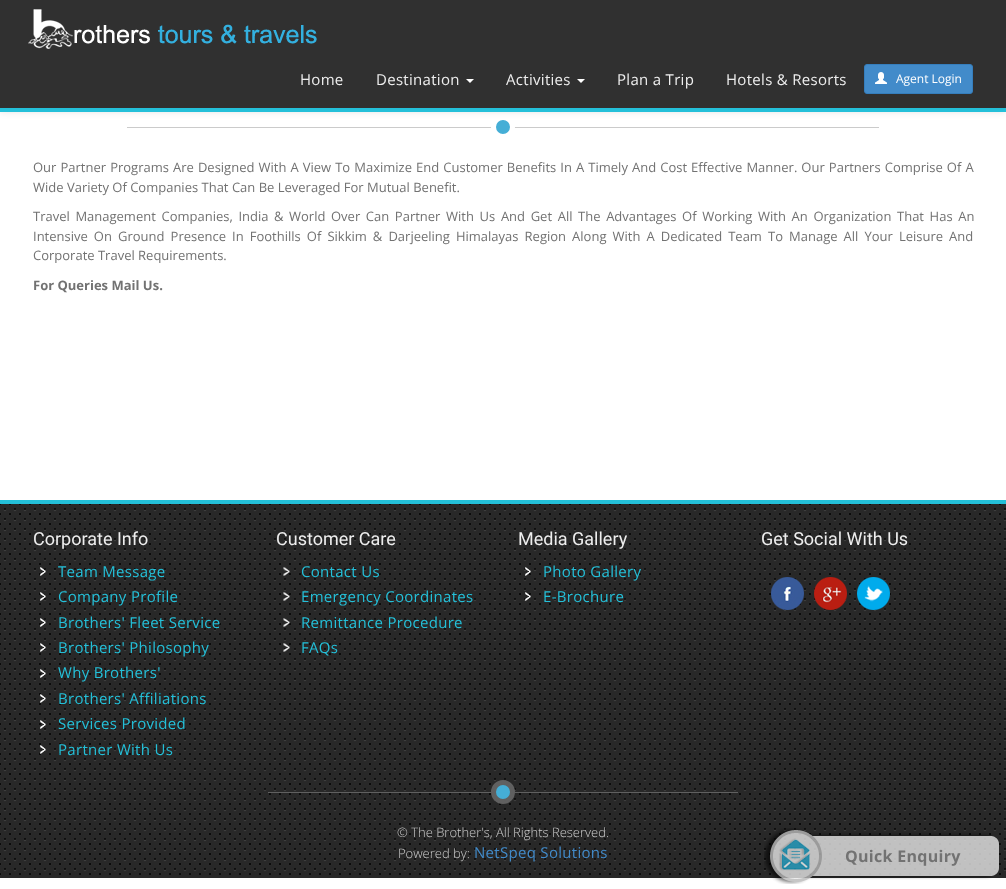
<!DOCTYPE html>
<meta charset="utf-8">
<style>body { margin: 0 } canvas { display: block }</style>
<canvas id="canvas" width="1006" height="889"></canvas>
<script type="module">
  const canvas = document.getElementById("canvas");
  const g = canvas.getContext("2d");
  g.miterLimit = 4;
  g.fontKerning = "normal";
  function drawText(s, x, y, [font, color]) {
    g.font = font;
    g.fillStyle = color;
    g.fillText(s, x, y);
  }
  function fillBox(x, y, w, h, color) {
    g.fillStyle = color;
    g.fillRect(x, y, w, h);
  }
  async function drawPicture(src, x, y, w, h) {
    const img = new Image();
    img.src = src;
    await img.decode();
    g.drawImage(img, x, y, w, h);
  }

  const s1 = ["15px Open Sans", "#EEEEEE"];
  const s2 = ["12px Open Sans", "#FFFFFF"];
  const s3 = ["13px Open Sans", "#727272"];
  const s4 = ["bold 13px Open Sans", "#727272"];
  const s5 = ["18px Roboto", "#EEEEEE"];
  const s6 = ["15px Open Sans", "#24C0D9"];
  const s7 = ["300 13px Open Sans", "#CCCCCC"];
  const s8 = ["15px Open Sans", "#428BCA"];
  const s9 = ["bold 16px Open Sans", "#727272"];

  fillBox(0, 0, 1006, 889, "#FFFFFF");
  fillBox(127, 127, 752, 1, "#CBCBCB");
  g.fillStyle = "#45AED6";
  g.beginPath();
  g.arc(503, 127, 9.5, 0, Math.PI * 2);
  g.fill();
  g.strokeStyle = "#FFFFFF";
  g.lineWidth = 5;
  g.stroke();
  g.fillStyle = "rgba(0, 0, 0, 0.1)";
  g.filter = "blur(3.5px)";
  g.beginPath();
  g.rect(0, 0, 1006, 112);
  g.fill();
  g.filter = "none";
  fillBox(0, 0, 1006, 108, "#303030");
  fillBox(0, 108, 1006, 4, "#24C0D9");
  await drawPicture("pic1.png", 28, 9, 289, 40);
  g.letterSpacing = "0.3px";
  drawText("Home", 300, 85, s1);
  drawText("Destination", 376, 85, s1);
  g.fillStyle = "#FFFFFF";
  g.beginPath();
  g.moveTo(466, 79);
  g.lineTo(474, 79);
  g.lineTo(470, 83);
  g.closePath();
  g.fill();
  drawText("Activities", 506, 85, s1);
  g.fillStyle = "#FFFFFF";
  g.beginPath();
  g.moveTo(577, 79);
  g.lineTo(585, 79);
  g.lineTo(581, 83);
  g.closePath();
  g.fill();
  drawText("Plan a Trip", 617, 85, s1);
  drawText("Hotels & Resorts", 726, 85, s1);
  g.fillStyle = "#428BCA";
  g.beginPath();
  g.roundRect(864.5, 64.5, 108, 29, 2.5);
  g.fill();
  g.strokeStyle = "#357EBD";
  g.lineWidth = 1;
  g.stroke();
  await drawPicture("pic2.png", 875, 72, 12, 12);
  g.letterSpacing = "0px";
  drawText("Agent Login", 896, 83, s2);
  g.wordSpacing = "0.7px";
  drawText("Our Partner Programs Are Designed With A View To Maximize End Customer Benefits In A Timely And Cost Effective Manner. Our Partners Comprise Of A", 33, 172, s3);
  g.wordSpacing = "0px";
  drawText("Wide Variety Of Companies That Can Be Leveraged For Mutual Benefit.", 33, 192, s3);
  g.wordSpacing = "2.25px";
  drawText("Travel Management Companies, India &", 33, 221, s3);
  drawText("World Over Can Partner With Us And Get All The Advantages Of Working With An Organization That Has An", 289, 221, s3);
  g.wordSpacing = "2.7px";
  drawText("Intensive On Ground Presence In Foothills Of Sikkim & Darjeeling Himalayas Region Along With A Dedicated Team To Manage All Your Leisure And", 33, 241, s3);
  g.wordSpacing = "0px";
  drawText("Corporate Travel Requirements.", 33, 260, s3);
  drawText("For Queries Mail Us.", 33, 290, s4);
  fillBox(0, 504, 1006, 374, "#282828");
  g.beginPath();
  g.moveTo(0, 504);
  g.lineTo(1000.2, 504);
  g.strokeStyle = "#3E3E3E";
  g.lineWidth = 2.5;
  g.lineCap = "round";
  g.setLineDash([0, 10]);
  g.stroke();
  g.beginPath();
  g.moveTo(0, 514);
  g.lineTo(1000.2, 514);
  g.stroke();
  g.beginPath();
  g.moveTo(0, 524);
  g.lineTo(1000.2, 524);
  g.stroke();
  g.beginPath();
  g.moveTo(0, 534);
  g.lineTo(1000.2, 534);
  g.stroke();
  g.beginPath();
  g.moveTo(0, 544);
  g.lineTo(1000.2, 544);
  g.stroke();
  g.beginPath();
  g.moveTo(0, 554);
  g.lineTo(1000.2, 554);
  g.stroke();
  g.beginPath();
  g.moveTo(0, 564);
  g.lineTo(1000.2, 564);
  g.stroke();
  g.beginPath();
  g.moveTo(0, 574);
  g.lineTo(1000.2, 574);
  g.stroke();
  g.beginPath();
  g.moveTo(0, 584);
  g.lineTo(1000.2, 584);
  g.stroke();
  g.beginPath();
  g.moveTo(0, 594);
  g.lineTo(1000.2, 594);
  g.stroke();
  g.beginPath();
  g.moveTo(0, 604);
  g.lineTo(1000.2, 604);
  g.stroke();
  g.beginPath();
  g.moveTo(0, 614);
  g.lineTo(1000.2, 614);
  g.stroke();
  g.beginPath();
  g.moveTo(0, 624);
  g.lineTo(1000.2, 624);
  g.stroke();
  g.beginPath();
  g.moveTo(0, 634);
  g.lineTo(1000.2, 634);
  g.stroke();
  g.beginPath();
  g.moveTo(0, 644);
  g.lineTo(1000.2, 644);
  g.stroke();
  g.beginPath();
  g.moveTo(0, 654);
  g.lineTo(1000.2, 654);
  g.stroke();
  g.beginPath();
  g.moveTo(0, 664);
  g.lineTo(1000.2, 664);
  g.stroke();
  g.beginPath();
  g.moveTo(0, 674);
  g.lineTo(1000.2, 674);
  g.stroke();
  g.beginPath();
  g.moveTo(0, 684);
  g.lineTo(1000.2, 684);
  g.stroke();
  g.beginPath();
  g.moveTo(0, 694);
  g.lineTo(1000.2, 694);
  g.stroke();
  g.beginPath();
  g.moveTo(0, 704);
  g.lineTo(1000.2, 704);
  g.stroke();
  g.beginPath();
  g.moveTo(0, 714);
  g.lineTo(1000.2, 714);
  g.stroke();
  g.beginPath();
  g.moveTo(0, 724);
  g.lineTo(1000.2, 724);
  g.stroke();
  g.beginPath();
  g.moveTo(0, 734);
  g.lineTo(1000.2, 734);
  g.stroke();
  g.beginPath();
  g.moveTo(0, 744);
  g.lineTo(1000.2, 744);
  g.stroke();
  g.beginPath();
  g.moveTo(0, 754);
  g.lineTo(1000.2, 754);
  g.stroke();
  g.beginPath();
  g.moveTo(0, 764);
  g.lineTo(1000.2, 764);
  g.stroke();
  g.beginPath();
  g.moveTo(0, 774);
  g.lineTo(1000.2, 774);
  g.stroke();
  g.beginPath();
  g.moveTo(0, 784);
  g.lineTo(1000.2, 784);
  g.stroke();
  g.beginPath();
  g.moveTo(0, 794);
  g.lineTo(1000.2, 794);
  g.stroke();
  g.beginPath();
  g.moveTo(0, 804);
  g.lineTo(1000.2, 804);
  g.stroke();
  g.beginPath();
  g.moveTo(0, 814);
  g.lineTo(1000.2, 814);
  g.stroke();
  g.beginPath();
  g.moveTo(0, 824);
  g.lineTo(1000.2, 824);
  g.stroke();
  g.beginPath();
  g.moveTo(0, 834);
  g.lineTo(1000.2, 834);
  g.stroke();
  g.beginPath();
  g.moveTo(0, 844);
  g.lineTo(1000.2, 844);
  g.stroke();
  g.beginPath();
  g.moveTo(0, 854);
  g.lineTo(1000.2, 854);
  g.stroke();
  g.beginPath();
  g.moveTo(0, 864);
  g.lineTo(1000.2, 864);
  g.stroke();
  g.beginPath();
  g.moveTo(0, 874);
  g.lineTo(1000.2, 874);
  g.stroke();
  g.beginPath();
  g.moveTo(5, 510);
  g.lineTo(1005.2, 510);
  g.stroke();
  g.beginPath();
  g.moveTo(5, 520);
  g.lineTo(1005.2, 520);
  g.stroke();
  g.beginPath();
  g.moveTo(5, 530);
  g.lineTo(1005.2, 530);
  g.stroke();
  g.beginPath();
  g.moveTo(5, 540);
  g.lineTo(1005.2, 540);
  g.stroke();
  g.beginPath();
  g.moveTo(5, 550);
  g.lineTo(1005.2, 550);
  g.stroke();
  g.beginPath();
  g.moveTo(5, 560);
  g.lineTo(1005.2, 560);
  g.stroke();
  g.beginPath();
  g.moveTo(5, 570);
  g.lineTo(1005.2, 570);
  g.stroke();
  g.beginPath();
  g.moveTo(5, 580);
  g.lineTo(1005.2, 580);
  g.stroke();
  g.beginPath();
  g.moveTo(5, 590);
  g.lineTo(1005.2, 590);
  g.stroke();
  g.beginPath();
  g.moveTo(5, 600);
  g.lineTo(1005.2, 600);
  g.stroke();
  g.beginPath();
  g.moveTo(5, 610);
  g.lineTo(1005.2, 610);
  g.stroke();
  g.beginPath();
  g.moveTo(5, 620);
  g.lineTo(1005.2, 620);
  g.stroke();
  g.beginPath();
  g.moveTo(5, 630);
  g.lineTo(1005.2, 630);
  g.stroke();
  g.beginPath();
  g.moveTo(5, 640);
  g.lineTo(1005.2, 640);
  g.stroke();
  g.beginPath();
  g.moveTo(5, 650);
  g.lineTo(1005.2, 650);
  g.stroke();
  g.beginPath();
  g.moveTo(5, 660);
  g.lineTo(1005.2, 660);
  g.stroke();
  g.beginPath();
  g.moveTo(5, 670);
  g.lineTo(1005.2, 670);
  g.stroke();
  g.beginPath();
  g.moveTo(5, 680);
  g.lineTo(1005.2, 680);
  g.stroke();
  g.beginPath();
  g.moveTo(5, 690);
  g.lineTo(1005.2, 690);
  g.stroke();
  g.beginPath();
  g.moveTo(5, 700);
  g.lineTo(1005.2, 700);
  g.stroke();
  g.beginPath();
  g.moveTo(5, 710);
  g.lineTo(1005.2, 710);
  g.stroke();
  g.beginPath();
  g.moveTo(5, 720);
  g.lineTo(1005.2, 720);
  g.stroke();
  g.beginPath();
  g.moveTo(5, 730);
  g.lineTo(1005.2, 730);
  g.stroke();
  g.beginPath();
  g.moveTo(5, 740);
  g.lineTo(1005.2, 740);
  g.stroke();
  g.beginPath();
  g.moveTo(5, 750);
  g.lineTo(1005.2, 750);
  g.stroke();
  g.beginPath();
  g.moveTo(5, 760);
  g.lineTo(1005.2, 760);
  g.stroke();
  g.beginPath();
  g.moveTo(5, 770);
  g.lineTo(1005.2, 770);
  g.stroke();
  g.beginPath();
  g.moveTo(5, 780);
  g.lineTo(1005.2, 780);
  g.stroke();
  g.beginPath();
  g.moveTo(5, 790);
  g.lineTo(1005.2, 790);
  g.stroke();
  g.beginPath();
  g.moveTo(5, 800);
  g.lineTo(1005.2, 800);
  g.stroke();
  g.beginPath();
  g.moveTo(5, 810);
  g.lineTo(1005.2, 810);
  g.stroke();
  g.beginPath();
  g.moveTo(5, 820);
  g.lineTo(1005.2, 820);
  g.stroke();
  g.beginPath();
  g.moveTo(5, 830);
  g.lineTo(1005.2, 830);
  g.stroke();
  g.beginPath();
  g.moveTo(5, 840);
  g.lineTo(1005.2, 840);
  g.stroke();
  g.beginPath();
  g.moveTo(5, 850);
  g.lineTo(1005.2, 850);
  g.stroke();
  g.beginPath();
  g.moveTo(5, 860);
  g.lineTo(1005.2, 860);
  g.stroke();
  g.beginPath();
  g.moveTo(5, 870);
  g.lineTo(1005.2, 870);
  g.stroke();
  g.beginPath();
  g.moveTo(0, 504);
  g.lineTo(1000.2, 504);
  g.strokeStyle = "#000000";
  g.lineWidth = 2.2;
  g.stroke();
  g.beginPath();
  g.moveTo(0, 514);
  g.lineTo(1000.2, 514);
  g.stroke();
  g.beginPath();
  g.moveTo(0, 524);
  g.lineTo(1000.2, 524);
  g.stroke();
  g.beginPath();
  g.moveTo(0, 534);
  g.lineTo(1000.2, 534);
  g.stroke();
  g.beginPath();
  g.moveTo(0, 544);
  g.lineTo(1000.2, 544);
  g.stroke();
  g.beginPath();
  g.moveTo(0, 554);
  g.lineTo(1000.2, 554);
  g.stroke();
  g.beginPath();
  g.moveTo(0, 564);
  g.lineTo(1000.2, 564);
  g.stroke();
  g.beginPath();
  g.moveTo(0, 574);
  g.lineTo(1000.2, 574);
  g.stroke();
  g.beginPath();
  g.moveTo(0, 584);
  g.lineTo(1000.2, 584);
  g.stroke();
  g.beginPath();
  g.moveTo(0, 594);
  g.lineTo(1000.2, 594);
  g.stroke();
  g.beginPath();
  g.moveTo(0, 604);
  g.lineTo(1000.2, 604);
  g.stroke();
  g.beginPath();
  g.moveTo(0, 614);
  g.lineTo(1000.2, 614);
  g.stroke();
  g.beginPath();
  g.moveTo(0, 624);
  g.lineTo(1000.2, 624);
  g.stroke();
  g.beginPath();
  g.moveTo(0, 634);
  g.lineTo(1000.2, 634);
  g.stroke();
  g.beginPath();
  g.moveTo(0, 644);
  g.lineTo(1000.2, 644);
  g.stroke();
  g.beginPath();
  g.moveTo(0, 654);
  g.lineTo(1000.2, 654);
  g.stroke();
  g.beginPath();
  g.moveTo(0, 664);
  g.lineTo(1000.2, 664);
  g.stroke();
  g.beginPath();
  g.moveTo(0, 674);
  g.lineTo(1000.2, 674);
  g.stroke();
  g.beginPath();
  g.moveTo(0, 684);
  g.lineTo(1000.2, 684);
  g.stroke();
  g.beginPath();
  g.moveTo(0, 694);
  g.lineTo(1000.2, 694);
  g.stroke();
  g.beginPath();
  g.moveTo(0, 704);
  g.lineTo(1000.2, 704);
  g.stroke();
  g.beginPath();
  g.moveTo(0, 714);
  g.lineTo(1000.2, 714);
  g.stroke();
  g.beginPath();
  g.moveTo(0, 724);
  g.lineTo(1000.2, 724);
  g.stroke();
  g.beginPath();
  g.moveTo(0, 734);
  g.lineTo(1000.2, 734);
  g.stroke();
  g.beginPath();
  g.moveTo(0, 744);
  g.lineTo(1000.2, 744);
  g.stroke();
  g.beginPath();
  g.moveTo(0, 754);
  g.lineTo(1000.2, 754);
  g.stroke();
  g.beginPath();
  g.moveTo(0, 764);
  g.lineTo(1000.2, 764);
  g.stroke();
  g.beginPath();
  g.moveTo(0, 774);
  g.lineTo(1000.2, 774);
  g.stroke();
  g.beginPath();
  g.moveTo(0, 784);
  g.lineTo(1000.2, 784);
  g.stroke();
  g.beginPath();
  g.moveTo(0, 794);
  g.lineTo(1000.2, 794);
  g.stroke();
  g.beginPath();
  g.moveTo(0, 804);
  g.lineTo(1000.2, 804);
  g.stroke();
  g.beginPath();
  g.moveTo(0, 814);
  g.lineTo(1000.2, 814);
  g.stroke();
  g.beginPath();
  g.moveTo(0, 824);
  g.lineTo(1000.2, 824);
  g.stroke();
  g.beginPath();
  g.moveTo(0, 834);
  g.lineTo(1000.2, 834);
  g.stroke();
  g.beginPath();
  g.moveTo(0, 844);
  g.lineTo(1000.2, 844);
  g.stroke();
  g.beginPath();
  g.moveTo(0, 854);
  g.lineTo(1000.2, 854);
  g.stroke();
  g.beginPath();
  g.moveTo(0, 864);
  g.lineTo(1000.2, 864);
  g.stroke();
  g.beginPath();
  g.moveTo(0, 874);
  g.lineTo(1000.2, 874);
  g.stroke();
  g.beginPath();
  g.moveTo(5, 509);
  g.lineTo(1005.2, 509);
  g.lineWidth = 1.8;
  g.stroke();
  g.beginPath();
  g.moveTo(5, 519);
  g.lineTo(1005.2, 519);
  g.stroke();
  g.beginPath();
  g.moveTo(5, 529);
  g.lineTo(1005.2, 529);
  g.stroke();
  g.beginPath();
  g.moveTo(5, 539);
  g.lineTo(1005.2, 539);
  g.stroke();
  g.beginPath();
  g.moveTo(5, 549);
  g.lineTo(1005.2, 549);
  g.stroke();
  g.beginPath();
  g.moveTo(5, 559);
  g.lineTo(1005.2, 559);
  g.stroke();
  g.beginPath();
  g.moveTo(5, 569);
  g.lineTo(1005.2, 569);
  g.stroke();
  g.beginPath();
  g.moveTo(5, 579);
  g.lineTo(1005.2, 579);
  g.stroke();
  g.beginPath();
  g.moveTo(5, 589);
  g.lineTo(1005.2, 589);
  g.stroke();
  g.beginPath();
  g.moveTo(5, 599);
  g.lineTo(1005.2, 599);
  g.stroke();
  g.beginPath();
  g.moveTo(5, 609);
  g.lineTo(1005.2, 609);
  g.stroke();
  g.beginPath();
  g.moveTo(5, 619);
  g.lineTo(1005.2, 619);
  g.stroke();
  g.beginPath();
  g.moveTo(5, 629);
  g.lineTo(1005.2, 629);
  g.stroke();
  g.beginPath();
  g.moveTo(5, 639);
  g.lineTo(1005.2, 639);
  g.stroke();
  g.beginPath();
  g.moveTo(5, 649);
  g.lineTo(1005.2, 649);
  g.stroke();
  g.beginPath();
  g.moveTo(5, 659);
  g.lineTo(1005.2, 659);
  g.stroke();
  g.beginPath();
  g.moveTo(5, 669);
  g.lineTo(1005.2, 669);
  g.stroke();
  g.beginPath();
  g.moveTo(5, 679);
  g.lineTo(1005.2, 679);
  g.stroke();
  g.beginPath();
  g.moveTo(5, 689);
  g.lineTo(1005.2, 689);
  g.stroke();
  g.beginPath();
  g.moveTo(5, 699);
  g.lineTo(1005.2, 699);
  g.stroke();
  g.beginPath();
  g.moveTo(5, 709);
  g.lineTo(1005.2, 709);
  g.stroke();
  g.beginPath();
  g.moveTo(5, 719);
  g.lineTo(1005.2, 719);
  g.stroke();
  g.beginPath();
  g.moveTo(5, 729);
  g.lineTo(1005.2, 729);
  g.stroke();
  g.beginPath();
  g.moveTo(5, 739);
  g.lineTo(1005.2, 739);
  g.stroke();
  g.beginPath();
  g.moveTo(5, 749);
  g.lineTo(1005.2, 749);
  g.stroke();
  g.beginPath();
  g.moveTo(5, 759);
  g.lineTo(1005.2, 759);
  g.stroke();
  g.beginPath();
  g.moveTo(5, 769);
  g.lineTo(1005.2, 769);
  g.stroke();
  g.beginPath();
  g.moveTo(5, 779);
  g.lineTo(1005.2, 779);
  g.stroke();
  g.beginPath();
  g.moveTo(5, 789);
  g.lineTo(1005.2, 789);
  g.stroke();
  g.beginPath();
  g.moveTo(5, 799);
  g.lineTo(1005.2, 799);
  g.stroke();
  g.beginPath();
  g.moveTo(5, 809);
  g.lineTo(1005.2, 809);
  g.stroke();
  g.beginPath();
  g.moveTo(5, 819);
  g.lineTo(1005.2, 819);
  g.stroke();
  g.beginPath();
  g.moveTo(5, 829);
  g.lineTo(1005.2, 829);
  g.stroke();
  g.beginPath();
  g.moveTo(5, 839);
  g.lineTo(1005.2, 839);
  g.stroke();
  g.beginPath();
  g.moveTo(5, 849);
  g.lineTo(1005.2, 849);
  g.stroke();
  g.beginPath();
  g.moveTo(5, 859);
  g.lineTo(1005.2, 859);
  g.stroke();
  g.beginPath();
  g.moveTo(5, 869);
  g.lineTo(1005.2, 869);
  g.stroke();
  fillBox(0, 500, 1006, 4, "#24C0D9");
  drawText("Corporate Info", 33, 545, s5);
  await drawPicture("pic3.png", 40, 567, 6, 9);
  g.letterSpacing = "0.3px";
  drawText("Team Message", 58, 577, s6);
  await drawPicture("pic4.png", 40, 592, 6, 9);
  drawText("Company Profile", 58, 602, s6);
  await drawPicture("pic5.png", 40, 618, 6, 9);
  drawText("Brothers' Fleet Service", 58, 628, s6);
  await drawPicture("pic6.png", 40, 643, 6, 9);
  drawText("Brothers' Philosophy", 58, 653, s6);
  await drawPicture("pic7.png", 40, 669, 6, 9);
  drawText("Why Brothers'", 58, 678, s6);
  await drawPicture("pic8.png", 40, 694, 6, 9);
  drawText("Brothers' Affiliations", 58, 704, s6);
  await drawPicture("pic9.png", 40, 720, 6, 9);
  drawText("Services Provided", 58, 729, s6);
  await drawPicture("pic10.png", 40, 745, 6, 9);
  drawText("Partner With Us", 58, 755, s6);
  g.letterSpacing = "0px";
  drawText("Customer Care", 276, 545, s5);
  await drawPicture("pic11.png", 283, 567, 7, 9);
  g.letterSpacing = "0.3px";
  drawText("Contact Us", 301, 577, s6);
  await drawPicture("pic12.png", 283, 592, 7, 9);
  drawText("Emergency Coordinates", 301, 602, s6);
  await drawPicture("pic13.png", 283, 618, 7, 9);
  drawText("Remittance Procedure", 301, 628, s6);
  await drawPicture("pic14.png", 283, 643, 7, 9);
  drawText("FAQs", 301, 653, s6);
  g.letterSpacing = "0px";
  drawText("Media Gallery", 518, 545, s5);
  await drawPicture("pic15.png", 525, 567, 6, 9);
  g.letterSpacing = "0.3px";
  drawText("Photo Gallery", 543, 577, s6);
  await drawPicture("pic16.png", 525, 592, 6, 9);
  drawText("E-Brochure", 543, 602, s6);
  g.letterSpacing = "0px";
  drawText("Get Social With Us", 761, 545, s5);
  await drawPicture("pic17.png", 771, 577, 33, 33);
  await drawPicture("pic18.png", 814, 577, 33, 33);
  await drawPicture("pic19.png", 857, 577, 33, 33);
  fillBox(268, 792, 470, 1, "#606060");
  g.fillStyle = "#45AED6";
  g.beginPath();
  g.arc(503, 792, 9.5, 0, Math.PI * 2);
  g.fill();
  g.strokeStyle = "#606060";
  g.lineWidth = 5;
  g.setLineDash([]);
  g.stroke();
  drawText("© The Brother's, All Rights Reserved.", 397, 837, s7);
  drawText("Powered by:", 398, 858, s7);
  g.letterSpacing = "0.3px";
  drawText("NetSpeq Solutions", 474, 858, s8);
  await drawPicture("pic20.png", 764, 828, 235, 56);
  drawText("Quick Enquiry", 845, 862, s9);
</script>
